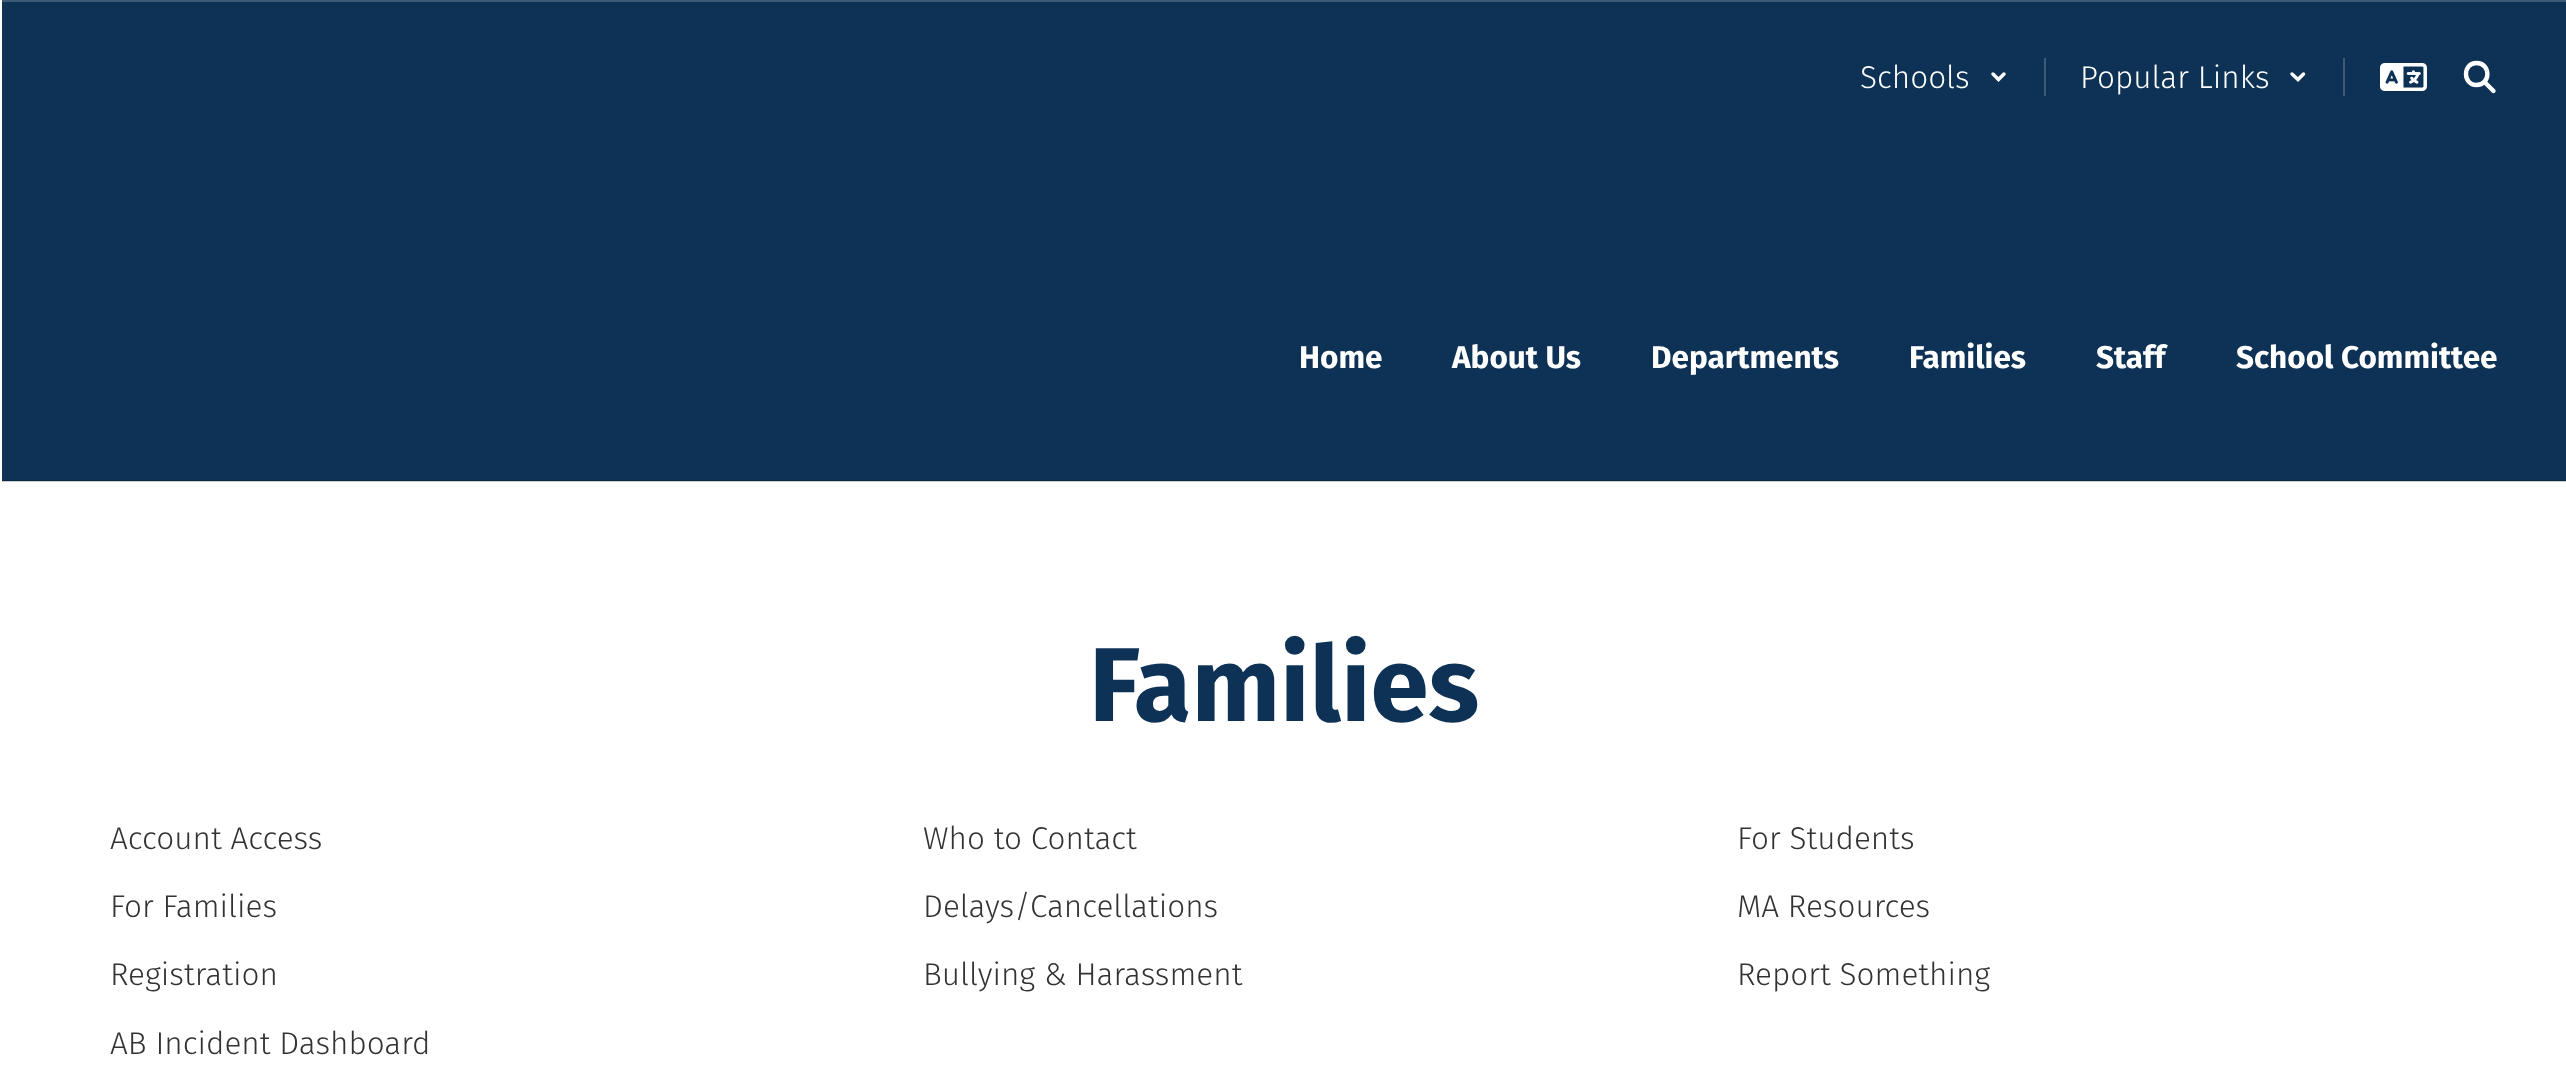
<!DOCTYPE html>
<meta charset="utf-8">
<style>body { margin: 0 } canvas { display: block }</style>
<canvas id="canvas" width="2566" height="1080"></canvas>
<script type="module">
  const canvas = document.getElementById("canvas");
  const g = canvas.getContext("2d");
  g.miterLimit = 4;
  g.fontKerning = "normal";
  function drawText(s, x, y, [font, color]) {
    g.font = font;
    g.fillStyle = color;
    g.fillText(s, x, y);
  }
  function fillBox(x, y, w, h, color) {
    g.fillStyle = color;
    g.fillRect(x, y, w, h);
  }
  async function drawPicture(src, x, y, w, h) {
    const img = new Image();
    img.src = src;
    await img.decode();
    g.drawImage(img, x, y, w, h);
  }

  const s1 = ["300 31.5px Fira Sans", "#FFFFFF"];
  const s2 = ["bold 31.5px Fira Sans", "#FFFFFF"];
  const s3 = ["bold 105px Fira Sans", "#0D3255"];
  const s4 = ["300 31.5px Fira Sans", "#333333"];

  fillBox(0, 0, 2566, 1080, "#FFFFFF");
  fillBox(2, 481, 2564, 1, "#CCCCCC");
  fillBox(2, 2, 2564, 478, "#0D3255");
  fillBox(2, 0, 2564, 2, "#3D5B77");
  fillBox(2, 480, 2564, 1, "#0A2844");
  fillBox(2044, 58, 2, 38, "#3D5B77");
  drawText("Schools", 1860, 88, s1);
  g.beginPath();
  g.moveTo(1993, 74);
  g.lineTo(1998.5, 79.5);
  g.lineTo(2004, 74);
  g.strokeStyle = "#FFFFFF";
  g.lineWidth = 3.5;
  g.lineCap = "round";
  g.stroke();
  fillBox(2343, 58, 2, 38, "#3D5B77");
  drawText("Popular Links", 2080, 88, s1);
  g.beginPath();
  g.moveTo(2292, 74);
  g.lineTo(2298, 79.5);
  g.lineTo(2303.5, 74);
  g.stroke();
  await drawPicture("pic1.png", 2380, 63, 47, 28);
  g.beginPath();
  g.moveTo(2476.5, 85);
  g.bezierCurveTo(2491, 85, 2491, 63, 2476.5, 63);
  g.bezierCurveTo(2462.5, 63, 2462.5, 85, 2476.5, 85);
  g.closePath();
  g.lineWidth = 4.4;
  g.lineCap = "square";
  g.lineJoin = "round";
  g.stroke();
  g.beginPath();
  g.moveTo(2493.5, 91);
  g.lineTo(2484.5, 82);
  g.lineCap = "round";
  g.stroke();
  drawText("Home", 1299, 368, s2);
  drawText("About Us", 1452, 368, s2);
  drawText("Departments", 1651, 368, s2);
  drawText("Families", 1909, 368, s2);
  drawText("Staff", 2096, 368, s2);
  drawText("School Committee", 2236, 368, s2);
  drawText("Families", 1089, 721, s3);
  drawText("Account Access", 110, 849, s4);
  drawText("Who to Contact", 923, 849, s4);
  drawText("For Students", 1737, 849, s4);
  drawText("For Families", 110, 917, s4);
  drawText("Delays/Cancellations", 923, 917, s4);
  drawText("MA Resources", 1737, 917, s4);
  drawText("Registration", 110, 985, s4);
  drawText("Bullying & Harassment", 923, 985, s4);
  drawText("Report Something", 1737, 985, s4);
  drawText("AB Incident Dashboard", 110, 1054, s4);
</script>
